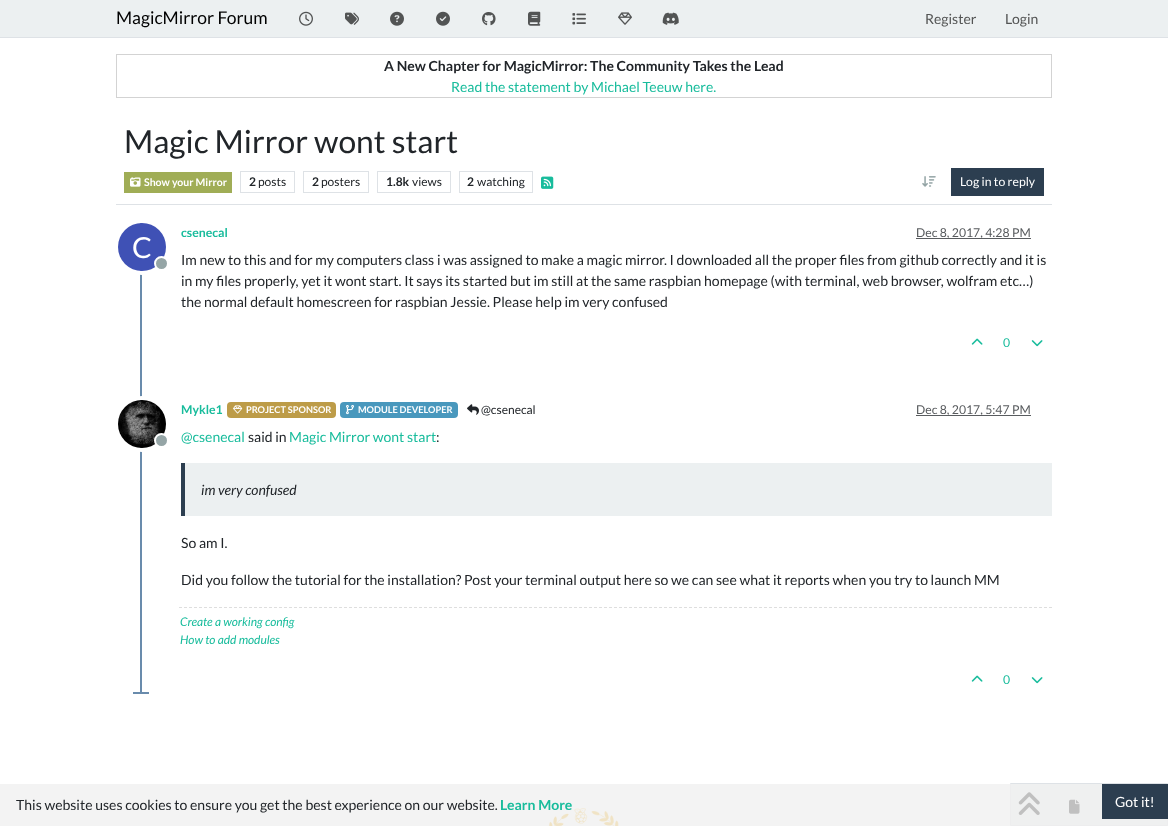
<!DOCTYPE html>
<meta charset="utf-8">
<style>body { margin: 0 } canvas { display: block }</style>
<canvas id="canvas" width="1168" height="826"></canvas>
<script type="module">
  const canvas = document.getElementById("canvas");
  const g = canvas.getContext("2d");
  g.miterLimit = 4;
  g.fontKerning = "normal";
  function drawText(s, x, y, [font, color]) {
    g.font = font;
    g.fillStyle = color;
    g.fillText(s, x, y);
  }
  function fillBox(x, y, w, h, color) {
    g.fillStyle = color;
    g.fillRect(x, y, w, h);
  }
  function fillRounded(x, y, w, h, r, color) {
    g.fillStyle = color;
    g.beginPath();
    g.roundRect(x, y, w, h, r);
    g.fill();
  }
  async function drawPicture(src, x, y, w, h) {
    const img = new Image();
    img.src = src;
    await img.decode();
    g.drawImage(img, x, y, w, h);
  }

  const s1 = ["17.5px Lato", "#000000"];
  const s2 = ["14px Lato", "#535454"];
  const s3 = ["bold 14px Lato", "#212529"];
  const s4 = ["14px Lato", "#18BC9C"];
  const s5 = ["31.75px Lato", "#212529"];
  const s6 = ["bold 10.5px Lato", "#FFFFFF"];
  const s7 = ["bold 12px Lato", "#212529"];
  const s8 = ["12px Lato", "#212529"];
  const s9 = ["12.25px Lato", "#FFFFFF"];
  const s10 = ["bold 12.25px Lato", "#18BC9C"];
  const s11 = ["12.25px Lato", "#585B5E"];
  const s12 = ["29px Lato", "#FFFFFF"];
  const s13 = ["14px Lato", "#212529"];
  const s14 = ["12.25px Lato", "#18BC9C"];
  const s15 = ["bold 9.25px Lato", "#FFFFFF"];
  const s16 = ["italic 14px Lato", "#212529"];
  const s17 = ["italic 12px Lato", "#18BC9C"];
  const s18 = ["bold 14px Lato", "#18BC9C"];
  const s19 = ["14px Lato", "#FFFFFF"];

  fillBox(0, 0, 1168, 826, "#FFFFFF");
  fillBox(0, 0, 1168, 37, "#ECF0F1");
  fillBox(0, 37, 1168, 1, "#DEE2E6");
  drawText("MagicMirror Forum", 116, 24, s1);
  await drawPicture("pic1.png", 299, 11, 14, 15);
  await drawPicture("pic2.png", 345, 12, 14, 13);
  await drawPicture("pic3.png", 390, 11, 14, 15);
  await drawPicture("pic4.png", 436, 11, 14, 15);
  await drawPicture("pic5.png", 482, 12, 14, 14);
  await drawPicture("pic6.png", 528, 11, 13, 15);
  await drawPicture("pic7.png", 572, 13, 14, 12);
  await drawPicture("pic8.png", 618, 12, 14, 13);
  await drawPicture("pic9.png", 662, 12, 17, 13);
  drawText("Register", 925, 24, s2);
  drawText("Login", 1005, 24, s2);
  g.strokeStyle = "#D3D3D3";
  g.strokeRect(116.5, 54.5, 935, 43);
  drawText("A New Chapter for MagicMirror: The Community Takes the Lead", 384, 71, s3);
  drawText("Read the statement by Michael Teeuw here.", 451, 92, s4);
  fillBox(116, 204, 936, 1, "#DEE2E6");
  drawText("Magic Mirror wont start", 124, 153, s5);
  fillBox(124, 172, 108, 21, "#A0AD56");
  await drawPicture("pic10.png", 130, 177, 11, 10);
  drawText("Show your Mirror", 144, 186, s6);
  g.strokeStyle = "#DEE2E6";
  g.strokeRect(240.5, 171.5, 54, 21);
  drawText("2", 249, 186, s7);
  drawText("posts", 258, 186, s8);
  g.strokeRect(303.5, 171.5, 65, 21);
  drawText("2", 312, 186, s7);
  drawText("posters", 321, 186, s8);
  g.strokeRect(377.5, 171.5, 73, 21);
  drawText("1.8k", 386, 186, s7);
  drawText("views", 412, 186, s8);
  g.strokeRect(459.5, 171.5, 73, 21);
  drawText("2", 467, 186, s7);
  drawText("watching", 477, 186, s8);
  await drawPicture("pic11.png", 541, 176, 13, 13);
  await drawPicture("pic12.png", 922, 176, 14, 11);
  fillBox(951, 168, 93, 28, "#2C3E50");
  drawText("Log in to reply", 960, 186, s9);
  fillBox(140, 221, 2, 473, "#698BAC");
  drawText("csenecal", 181, 237, s10);
  fillBox(916, 238, 115, 1, "#595C5F");
  drawText("Dec 8, 2017, 4:28 PM", 916, 237, s11);
  g.beginPath();
  g.arc(142, 247, 26, 0, Math.PI * 2);
  g.strokeStyle = "#FFFFFF";
  g.lineWidth = 4;
  g.stroke();
  g.fillStyle = "#3F51B5";
  g.beginPath();
  g.arc(142, 247, 24, 0, Math.PI * 2);
  g.fill();
  drawText("C", 132, 258, s12);
  g.fillStyle = "#95A5A6";
  g.beginPath();
  g.arc(161.5, 263.5, 6.5, 0, Math.PI * 2);
  g.fill();
  g.lineWidth = 2;
  g.stroke();
  drawText("Im new to this and for my computers class i was assigned to make a magic mirror. I downloaded all the proper files from github correctly and it is", 181, 265, s13);
  drawText("in my files properly, yet it wont start. It says its started but im still at the same raspbian homepage (with terminal, web browser, wolfram etc…)", 181, 286, s13);
  drawText("the normal default homescreen for raspbian Jessie. Please help im very confused", 181, 307, s13);
  await drawPicture("pic13.png", 971, 338, 12, 7);
  drawText("0", 1003, 347, s14);
  await drawPicture("pic14.png", 1031, 340, 12, 7);
  g.beginPath();
  g.arc(142, 424, 26, 0, Math.PI * 2);
  g.lineWidth = 4;
  g.stroke();
  await drawPicture("pic15.png", 118, 400, 48, 48);
  g.fillStyle = "#95A5A6";
  g.beginPath();
  g.arc(161.5, 440.5, 6.5, 0, Math.PI * 2);
  g.fill();
  g.lineWidth = 2;
  g.stroke();
  drawText("Mykle1", 181, 414, s10);
  fillRounded(227, 402, 109, 16, 4, "#BD9C48");
  await drawPicture("pic16.png", 233, 405, 10, 9);
  drawText("PROJECT SPONSOR", 246, 413, s15);
  fillRounded(340, 402, 118, 16, 4, "#4998BD");
  await drawPicture("pic17.png", 346, 405, 8, 10);
  drawText("MODULE DEVELOPER", 358, 413, s15);
  await drawPicture("pic18.png", 467, 404, 12, 11);
  drawText("@csenecal", 481, 414, s8);
  fillBox(916, 415, 115, 1, "#595C5F");
  drawText("Dec 8, 2017, 5:47 PM", 916, 414, s11);
  drawText("@csenecal", 181, 442, s4);
  drawText("said in", 248, 442, s13);
  drawText("Magic Mirror wont start", 289, 442, s4);
  drawText(":", 436, 442, s13);
  fillBox(185, 463, 867, 53, "#ECF0F1");
  fillBox(181, 463, 4, 53, "#2C3E50");
  drawText("im very confused", 201, 495, s16);
  drawText("So am I.", 181, 548, s13);
  drawText("Did you follow the tutorial for the installation? Post your terminal output here so we can see what it reports when you try to launch MM", 181, 585, s13);
  g.beginPath();
  g.moveTo(179, 607.5);
  g.lineTo(1052, 607.5);
  g.strokeStyle = "#DEDEDE";
  g.lineWidth = 1;
  g.setLineDash([3, 2]);
  g.stroke();
  drawText("Create a working config", 180, 626, s17);
  drawText("How to add modules", 180, 644, s17);
  await drawPicture("pic13.png", 971, 675, 12, 7);
  drawText("0", 1003, 684, s14);
  await drawPicture("pic14.png", 1031, 677, 12, 7);
  fillBox(133, 692, 16, 2, "#698BAC");
  g.fillStyle = "#ECF0F1";
  g.beginPath();
  g.rect(1010.5, 783.5, 157, 42);
  g.fill();
  g.strokeStyle = "#DEE2E6";
  g.setLineDash([]);
  g.stroke();
  await drawPicture("pic19.png", 1018, 792, 22, 23);
  await drawPicture("pic20.png", 1069, 799, 11, 15);
  await drawPicture("pic21.png", 548, 808, 71, 18);
  fillBox(0, 784, 1168, 42, "rgba(240, 240, 240, 0.8)");
  drawText("This website uses cookies to ensure you get the best experience on our website.", 16, 810, s13);
  drawText("Learn More", 500, 810, s18);
  fillBox(1102, 784, 66, 35, "#2C3E50");
  drawText("Got it!", 1115, 807, s19);
</script>
